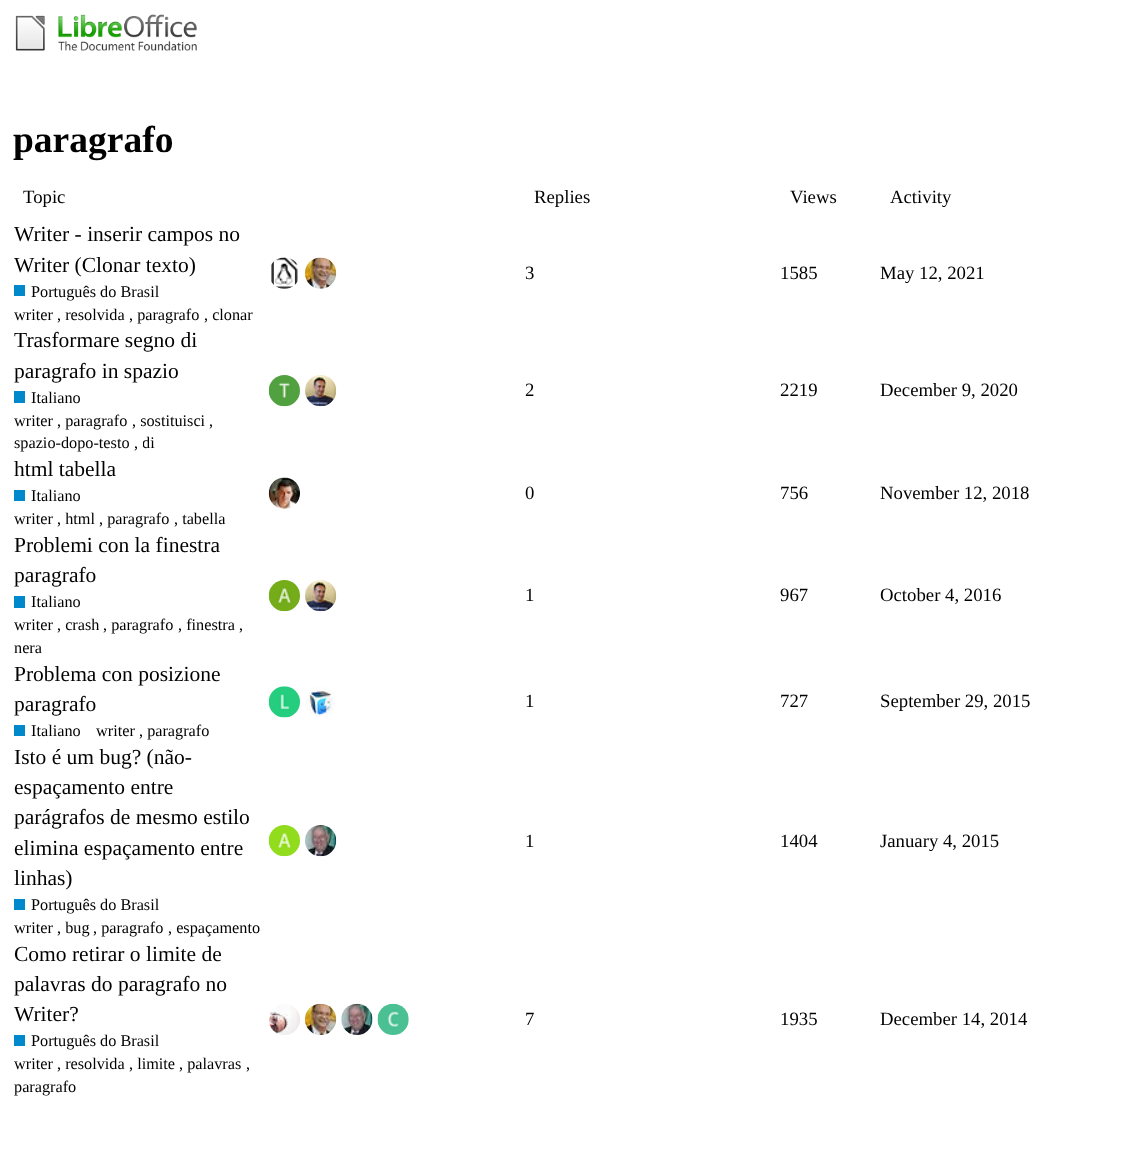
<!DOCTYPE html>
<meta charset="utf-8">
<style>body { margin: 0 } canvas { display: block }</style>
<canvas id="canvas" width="1148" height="1165"></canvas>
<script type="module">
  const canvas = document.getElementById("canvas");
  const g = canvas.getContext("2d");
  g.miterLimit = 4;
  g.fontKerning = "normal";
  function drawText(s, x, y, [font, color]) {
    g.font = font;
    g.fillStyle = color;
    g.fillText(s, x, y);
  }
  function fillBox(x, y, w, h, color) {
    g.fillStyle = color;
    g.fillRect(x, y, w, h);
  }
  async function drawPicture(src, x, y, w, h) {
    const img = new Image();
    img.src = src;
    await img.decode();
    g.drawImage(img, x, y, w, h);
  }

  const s1 = ["bold 37.5px Liberation Serif", "#000000"];
  const s2 = ["18.75px Liberation Serif", "#000000"];
  const s3 = ["21.5px Liberation Serif", "#000000"];
  const s4 = ["16.25px Liberation Serif", "#000000"];

  fillBox(0, 0, 1148, 1165, "#FFFFFF");
  await drawPicture("pic1.png", 15, 14, 182, 37);
  drawText("paragrafo", 13, 152, s1);
  drawText("Topic", 23, 203, s2);
  drawText("Replies", 534, 203, s2);
  drawText("Views", 790, 203, s2);
  drawText("Activity", 890, 203, s2);
  drawText("Writer - inserir campos no", 14, 241, s3);
  drawText("Writer (Clonar texto)", 14, 272, s3);
  fillBox(14, 285, 11, 11, "#0088CC");
  drawText("Português do Brasil", 31, 297, s4);
  drawText("writer", 14, 320, s4);
  drawText(", resolvida", 57, 320, s4);
  drawText(", paragrafo", 129, 320, s4);
  drawText(", clonar", 204, 320, s4);
  await drawPicture("pic2.png", 271, 257, 27, 32);
  await drawPicture("pic3.png", 305, 257, 32, 32);
  drawText("3", 525, 279, s2);
  drawText("1585", 780, 279, s2);
  drawText("May 12, 2021", 880, 279, s2);
  drawText("Trasformare segno di", 14, 347, s3);
  drawText("paragrafo in spazio", 14, 378, s3);
  fillBox(14, 391, 11, 12, "#0088CC");
  drawText("Italiano", 31, 403, s4);
  drawText("writer", 14, 426, s4);
  drawText(", paragrafo", 57, 426, s4);
  drawText(", sostituisci", 132, 426, s4);
  drawText(",", 209, 426, s4);
  drawText("spazio-dopo-testo", 14, 448, s4);
  drawText(",", 134, 448, s4);
  g.save();
  g.beginPath();
  g.rect(143, 433, 12, 22);
  g.clip();
  drawText("di", 142, 448, s4);
  g.restore();
  await drawPicture("pic4.png", 268, 375, 32, 32);
  await drawPicture("pic5.png", 305, 375, 32, 32);
  drawText("2", 525, 396, s2);
  drawText("2219", 780, 396, s2);
  drawText("December 9, 2020", 880, 396, s2);
  drawText("html tabella", 14, 476, s3);
  fillBox(14, 490, 11, 11, "#0088CC");
  drawText("Italiano", 31, 501, s4);
  drawText("writer", 14, 524, s4);
  drawText(", html", 57, 524, s4);
  drawText(", paragrafo", 99, 524, s4);
  drawText(", tabella", 174, 524, s4);
  await drawPicture("pic6.png", 268, 477, 32, 32);
  drawText("0", 525, 499, s2);
  drawText("756", 780, 499, s2);
  drawText("November 12, 2018", 880, 499, s2);
  drawText("Problemi con la finestra", 14, 552, s3);
  drawText("paragrafo", 14, 582, s3);
  fillBox(14, 596, 11, 12, "#0088CC");
  drawText("Italiano", 31, 607, s4);
  drawText("writer", 14, 630, s4);
  drawText(", crash", 57, 630, s4);
  drawText(", paragrafo", 103, 630, s4);
  drawText(", finestra", 178, 630, s4);
  drawText(",", 239, 630, s4);
  drawText("nera", 14, 653, s4);
  await drawPicture("pic7.png", 268, 580, 32, 32);
  await drawPicture("pic8.png", 305, 580, 32, 32);
  drawText("1", 525, 601, s2);
  drawText("967", 780, 601, s2);
  drawText("October 4, 2016", 880, 601, s2);
  drawText("Problema con posizione", 14, 681, s3);
  drawText("paragrafo", 14, 711, s3);
  fillBox(14, 725, 11, 11, "#0088CC");
  drawText("Italiano", 31, 736, s4);
  drawText("writer", 96, 736, s4);
  drawText(", paragrafo", 139, 736, s4);
  await drawPicture("pic9.png", 268, 686, 32, 32);
  await drawPicture("pic10.png", 305, 686, 30, 31);
  drawText("1", 525, 707, s2);
  drawText("727", 780, 707, s2);
  drawText("September 29, 2015", 880, 707, s2);
  drawText("Isto é um bug? (não-", 14, 764, s3);
  drawText("espaçamento entre", 14, 794, s3);
  drawText("parágrafos de mesmo estilo", 14, 824, s3);
  drawText("elimina espaçamento entre", 14, 855, s3);
  drawText("linhas)", 14, 885, s3);
  fillBox(14, 899, 11, 11, "#0088CC");
  drawText("Português do Brasil", 31, 910, s4);
  drawText("writer", 14, 933, s4);
  drawText(", bug", 57, 933, s4);
  drawText(", paragrafo", 93, 933, s4);
  drawText(", espaçamento", 168, 933, s4);
  await drawPicture("pic11.png", 268, 825, 32, 32);
  await drawPicture("pic12.png", 305, 825, 32, 32);
  drawText("1", 525, 847, s2);
  drawText("1404", 780, 847, s2);
  drawText("January 4, 2015", 880, 847, s2);
  drawText("Como retirar o limite de", 14, 961, s3);
  drawText("palavras do paragrafo no", 14, 991, s3);
  drawText("Writer?", 14, 1021, s3);
  fillBox(14, 1035, 11, 11, "#0088CC");
  drawText("Português do Brasil", 31, 1046, s4);
  drawText("writer", 14, 1069, s4);
  drawText(", resolvida", 57, 1069, s4);
  drawText(", limite", 129, 1069, s4);
  drawText(", palavras", 179, 1069, s4);
  drawText(",", 246, 1069, s4);
  drawText("paragrafo", 14, 1092, s4);
  await drawPicture("pic13.png", 269, 1004, 31, 31);
  await drawPicture("pic14.png", 305, 1003, 32, 32);
  await drawPicture("pic15.png", 341, 1003, 32, 32);
  await drawPicture("pic16.png", 377, 1003, 32, 32);
  drawText("7", 525, 1025, s2);
  drawText("1935", 780, 1025, s2);
  drawText("December 14, 2014", 880, 1025, s2);
</script>
